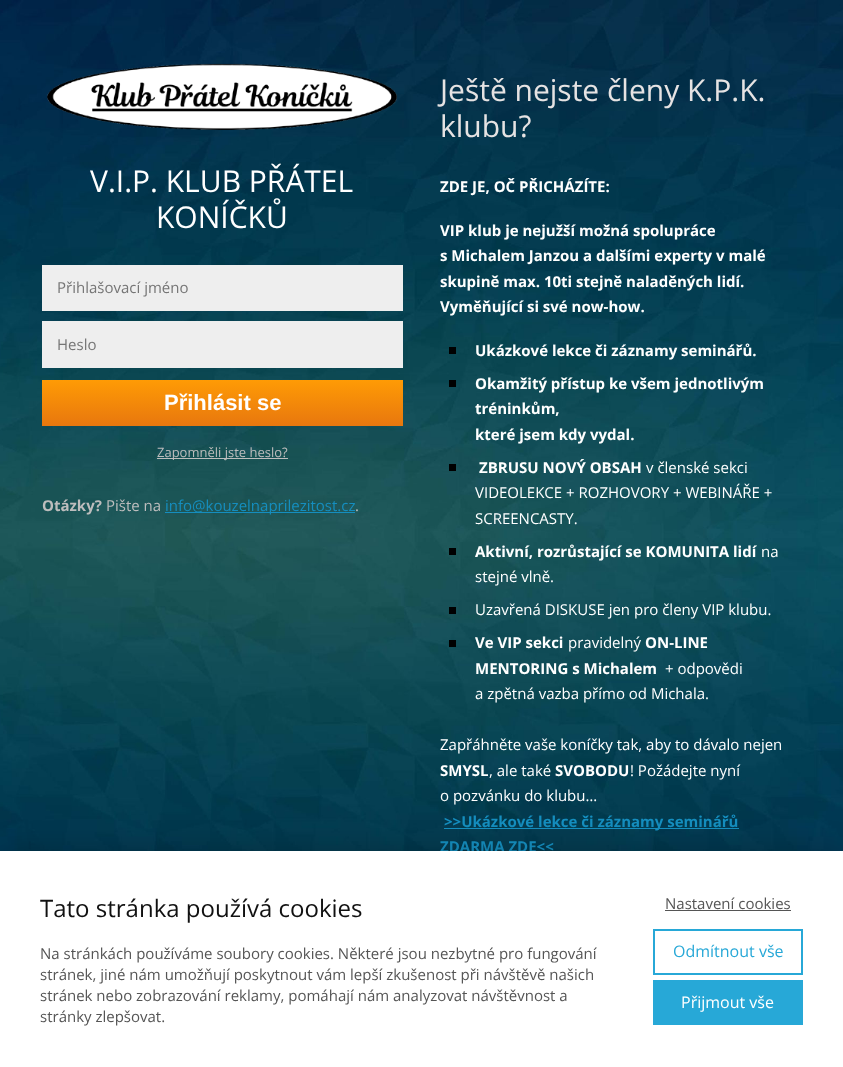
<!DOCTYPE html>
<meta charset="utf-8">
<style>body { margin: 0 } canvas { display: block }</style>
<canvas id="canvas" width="843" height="1067"></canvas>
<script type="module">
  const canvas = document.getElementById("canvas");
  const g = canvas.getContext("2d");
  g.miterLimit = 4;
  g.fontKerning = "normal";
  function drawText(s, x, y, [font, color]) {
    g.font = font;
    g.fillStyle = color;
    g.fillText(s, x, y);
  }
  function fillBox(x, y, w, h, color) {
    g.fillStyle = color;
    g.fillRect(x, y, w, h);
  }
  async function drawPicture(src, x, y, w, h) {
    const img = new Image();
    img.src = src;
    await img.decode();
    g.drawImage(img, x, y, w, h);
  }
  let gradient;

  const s1 = ["30px Open Sans", "#FFFFFF"];
  const s2 = ["15px Open Sans", "#757575"];
  const s3 = ["bold 22px Liberation Sans", "#FFFFFF"];
  const s4 = ["13px Open Sans", "#BDBDBD"];
  const s5 = ["bold 15px Open Sans", "#BDBDBD"];
  const s6 = ["15px Open Sans", "#BDBDBD"];
  const s7 = ["15px Open Sans", "#158EBF"];
  const s8 = ["30px Open Sans", "#E6E3E3"];
  const s9 = ["bold 15px Open Sans", "#FFFFFF"];
  const s10 = ["15px Open Sans", "#FFFFFF"];
  const s11 = ["bold 15px Open Sans", "#158EBF"];
  const s12 = ["24px Open Sans", "#111111"];
  const s13 = ["15px Open Sans", "#555555"];
  const s14 = ["16px Open Sans", "#27A8D7"];
  const s15 = ["16px Open Sans", "#FFFFFF"];

  fillBox(0, 0, 843, 1067, "#FFFFFF");
  await drawPicture("pic2.png", 0, 0, 843, 851);
  await drawPicture("pic1.png", 47, 63, 350, 67);
  drawText("V.I.P. KLUB PŘÁTEL", 90, 192, s1);
  drawText("KONÍČKŮ", 156, 228, s1);
  fillBox(42, 265, 361, 46, "#EEEEEE");
  drawText("Přihlašovací jméno", 57, 293, s2);
  fillBox(42, 321, 361, 47, "#EEEEEE");
  drawText("Heslo", 57, 350, s2);
  gradient = g.createLinearGradient(223, 380, 223, 426);
  gradient.addColorStop(0, "#FF9B05");
  gradient.addColorStop(1, "#E8770E");
  g.fillStyle = gradient;
  g.fillRect(42, 380, 361, 46);
  drawText("Přihlásit se", 164, 410, s3);
  fillBox(157, 458, 131, 1, "#BDBDBD");
  drawText("Zapomněli jste heslo?", 157, 457, s4);
  drawText("Otázky?", 42, 511, s5);
  drawText("Pište na", 106, 511, s6);
  fillBox(165, 512, 190, 1, "#158EBF");
  drawText("info@kouzelnaprilezitost.cz", 165, 511, s7);
  drawText(".", 355, 511, s6);
  drawText("Ještě nejste členy K.P.K.", 440, 101, s8);
  drawText("klubu?", 440, 137, s8);
  drawText("ZDE JE, OČ PŘICHÁZÍTE:", 440, 192, s9);
  drawText("VIP klub je nejužší možná spolupráce", 440, 236, s9);
  drawText("s Michalem Janzou a dalšími experty v malé", 440, 261, s9);
  drawText("skupině max. 10ti stejně naladěných lidí.", 440, 287, s9);
  drawText("Vyměňující si své now-how.", 440, 312, s9);
  fillBox(449, 347, 7, 7, "#000000");
  drawText("Ukázkové lekce či záznamy seminářů.", 475, 356, s9);
  fillBox(449, 380, 7, 7, "#000000");
  drawText("Okamžitý přístup ke všem jednotlivým", 475, 389, s9);
  drawText("tréninkům,", 475, 414, s9);
  drawText("které jsem kdy vydal.", 475, 440, s9);
  fillBox(449, 464, 7, 7, "#000000");
  drawText("ZBRUSU NOVÝ OBSAH", 479, 473, s9);
  drawText("v členské sekci", 646, 473, s10);
  drawText("VIDEOLEKCE + ROZHOVORY + WEBINÁŘE +", 475, 498, s10);
  drawText("SCREENCASTY.", 475, 524, s10);
  fillBox(449, 548, 7, 7, "#000000");
  drawText("Aktivní, rozrůstající se KOMUNITA lidí", 475, 557, s9);
  drawText("na", 761, 557, s10);
  drawText("stejné vlně.", 475, 582, s10);
  fillBox(449, 607, 7, 7, "#000000");
  drawText("Uzavřená DISKUSE jen pro členy VIP klubu.", 475, 615, s10);
  fillBox(449, 640, 7, 7, "#000000");
  drawText("Ve VIP sekci", 475, 648, s9);
  drawText("pravidelný", 568, 648, s10);
  drawText("ON-LINE", 645, 648, s9);
  drawText("MENTORING s Michalem", 475, 674, s9);
  drawText("+ odpovědi", 665, 674, s10);
  drawText("a zpětná vazba přímo od Michala.", 475, 699, s10);
  drawText("Zapřáhněte vaše koníčky tak, aby to dávalo nejen", 440, 750, s10);
  drawText("SMYSL", 440, 776, s9);
  drawText(", ale také", 489, 776, s10);
  drawText("SVOBODU", 555, 776, s9);
  drawText("! Požádejte nyní", 630, 776, s10);
  drawText("o pozvánku do klubu…", 440, 801, s10);
  fillBox(444, 828, 295, 1, "#158EBF");
  drawText(">>Ukázkové lekce či záznamy seminářů", 444, 827, s11);
  drawText("ZDARMA ZDE<<", 440, 852, s11);
  g.fillStyle = "rgba(0, 0, 0, 0.2)";
  g.filter = "blur(15px)";
  g.beginPath();
  g.rect(0, 851, 843, 216);
  g.fill();
  g.filter = "none";
  fillBox(0, 851, 843, 216, "#FFFFFF");
  drawText("Tato stránka používá cookies", 40, 917, s12);
  drawText("Na stránkách používáme soubory cookies. Některé jsou nezbytné pro fungování", 40, 959, s13);
  drawText("stránek, jiné nám umožňují poskytnout vám lepší zkušenost při návštěvě našich", 40, 980, s13);
  drawText("stránek nebo zobrazování reklamy, pomáhají nám analyzovat návštěvnost a", 40, 1001, s13);
  drawText("stránky zlepšovat.", 40, 1022, s13);
  drawText("Nastavení cookies", 665, 909, s13);
  fillBox(665, 910, 126, 1, "#555555");
  g.strokeStyle = "#27A8D7";
  g.lineWidth = 2;
  g.strokeRect(654, 930, 148, 44);
  drawText("Odmítnout vše", 673, 957, s14);
  fillBox(653, 980, 150, 45, "#27A8D7");
  drawText("Přijmout vše", 681, 1008, s15);
</script>
